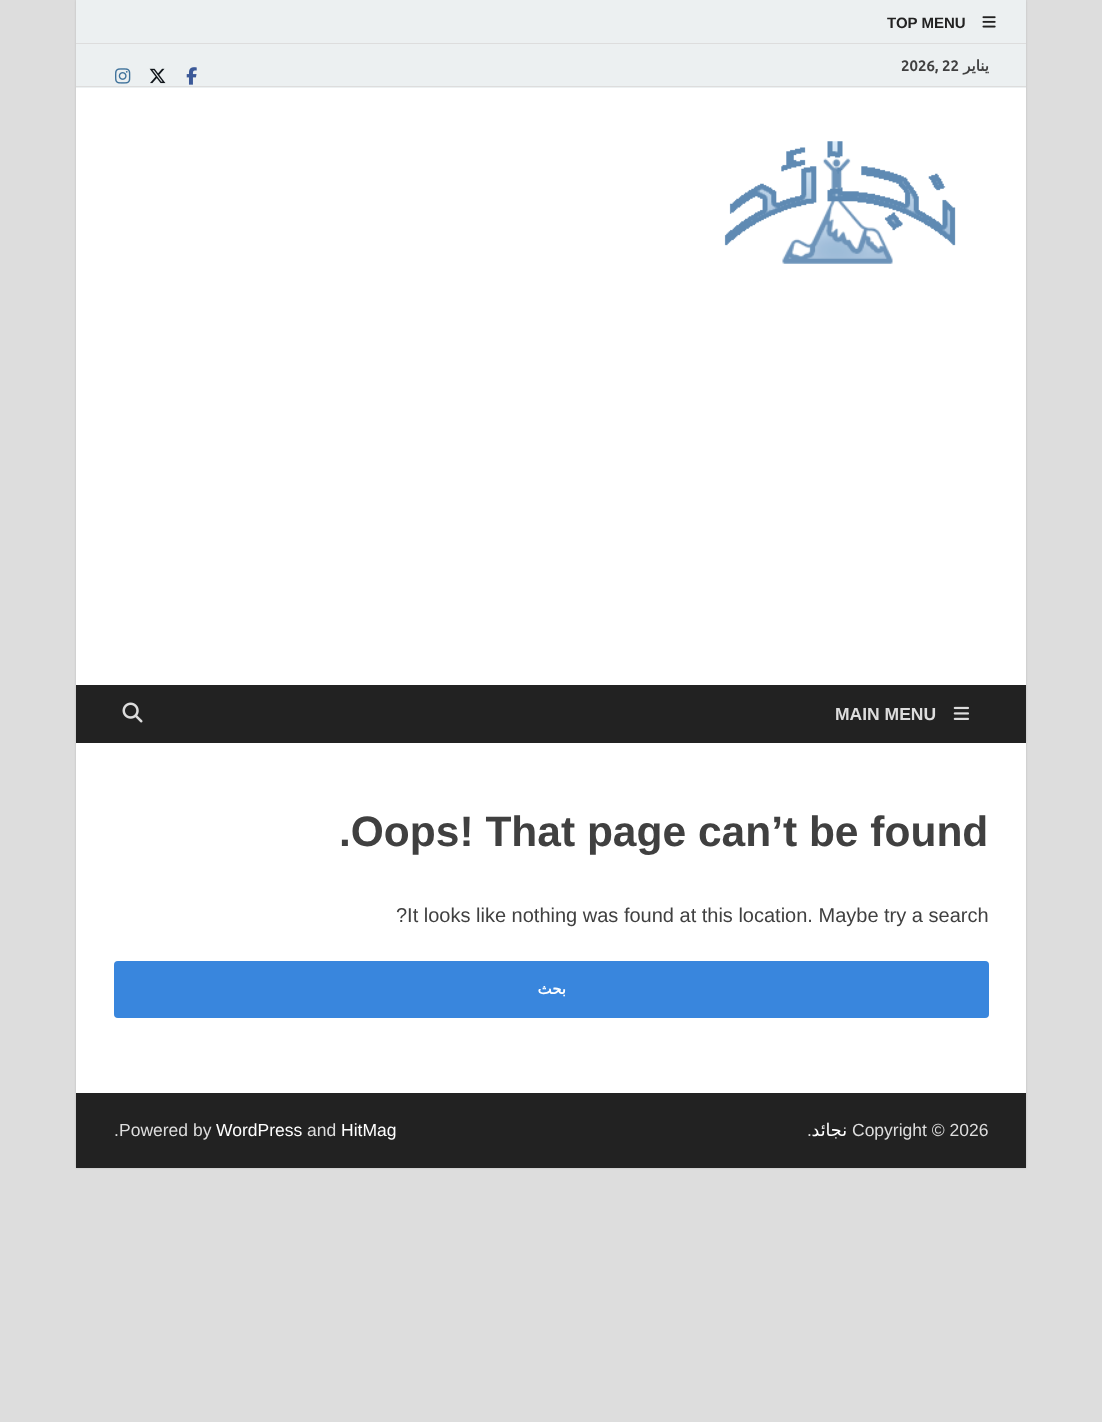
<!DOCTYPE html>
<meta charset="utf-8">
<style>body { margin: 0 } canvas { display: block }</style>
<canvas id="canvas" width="1102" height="1422"></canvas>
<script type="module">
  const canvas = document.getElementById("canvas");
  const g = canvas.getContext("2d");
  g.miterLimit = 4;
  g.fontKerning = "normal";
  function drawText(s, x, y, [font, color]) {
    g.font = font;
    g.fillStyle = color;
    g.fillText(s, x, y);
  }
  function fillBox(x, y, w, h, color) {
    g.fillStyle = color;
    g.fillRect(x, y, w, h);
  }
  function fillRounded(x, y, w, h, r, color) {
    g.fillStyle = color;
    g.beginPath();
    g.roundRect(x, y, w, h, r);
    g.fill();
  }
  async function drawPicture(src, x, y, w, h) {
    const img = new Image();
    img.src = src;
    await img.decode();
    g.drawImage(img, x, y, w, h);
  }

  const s1 = ["bold 15px Liberation Sans", "#222222"];
  const s2 = ["bold 15px Ubuntu", "#404040"];
  const s3 = ["bold 15px DejaVu Sans", "#404040"];
  const s4 = ["bold 17.5px Liberation Sans", "#DDDDDD"];
  const s5 = ["bold 42.5px Liberation Sans", "#404040"];
  const s6 = ["20px Liberation Sans", "#404040"];
  const s7 = ["bold 15px DejaVu Sans", "#FFFFFF"];
  const s8 = ["17.5px Liberation Sans", "#DDDDDD"];
  const s9 = ["17.5px Liberation Sans", "#FFFFFF"];
  const s10 = ["17.5px DejaVu Sans", "#FFFFFF"];

  fillBox(0, 0, 1102, 1422, "#DDDDDD");
  g.fillStyle = "#BBBBBB";
  g.filter = "blur(1px)";
  g.beginPath();
  g.rect(76, 0, 950, 1168);
  g.fill();
  g.filter = "none";
  fillBox(76, 88, 950, 1005, "#FFFFFF");
  fillBox(76, 0, 950, 43, "#ECF0F1");
  fillBox(76, 43, 950, 1, "#DDDDDD");
  drawText("TOP MENU", 887, 28, s1);
  await drawPicture("pic1.png", 982, 16, 14, 12);
  fillBox(76, 44, 950, 44, "#ECF0F1");
  fillBox(76, 86, 950, 1, "#DDDDDD");
  await drawPicture("pic2.png", 115, 68, 16, 16);
  await drawPicture("pic3.png", 149, 68, 17, 16);
  await drawPicture("pic4.png", 186, 67, 11, 18);
  drawText("2026, 22", 901, 71, s2);
  g.direction = "rtl";
  drawText("يناير", 989, 71, s3);
  await drawPicture("pic5.png", 724, 141, 232, 123);
  fillBox(76, 685, 950, 58, "#222222");
  await drawPicture("pic6.png", 122, 702, 21, 21);
  g.direction = "ltr";
  drawText("MAIN MENU", 835, 720, s4);
  await drawPicture("pic7.png", 953, 706, 17, 14);
  drawText(".Oops! That page can’t be found", 339, 846, s5);
  drawText("?It looks like nothing was found at this location. Maybe try a search", 396, 922, s6);
  g.beginPath();
  g.roundRect(114.5, 961.5, 874, 56, 3.5);
  g.strokeStyle = "#DDDDDD";
  g.stroke();
  fillRounded(114, 961, 875, 57, 4, "#3986DD");
  g.direction = "rtl";
  drawText("بحث", 566, 994, s7);
  fillBox(76, 1093, 950, 75, "#222222");
  g.direction = "ltr";
  drawText(".", 114, 1136, s8);
  drawText("Powered by", 119, 1136, s8);
  drawText("WordPress", 216, 1136, s9);
  drawText("and", 307, 1136, s8);
  drawText("HitMag", 341, 1136, s9);
  drawText(".", 807, 1136, s8);
  g.direction = "rtl";
  drawText("نجائد", 847, 1136, s10);
  g.direction = "ltr";
  drawText("Copyright © 2026", 852, 1136, s8);
</script>
